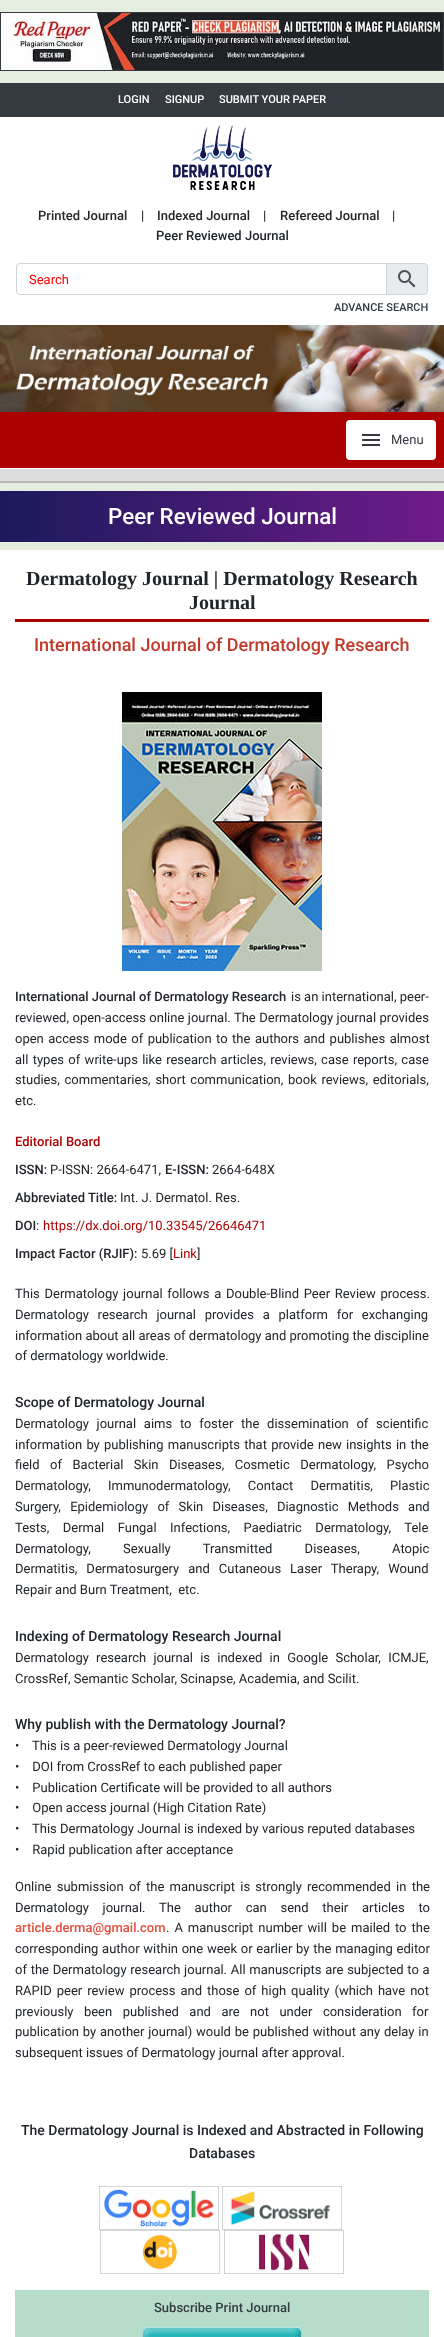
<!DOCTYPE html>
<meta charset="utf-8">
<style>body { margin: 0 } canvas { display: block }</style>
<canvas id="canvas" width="444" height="2337"></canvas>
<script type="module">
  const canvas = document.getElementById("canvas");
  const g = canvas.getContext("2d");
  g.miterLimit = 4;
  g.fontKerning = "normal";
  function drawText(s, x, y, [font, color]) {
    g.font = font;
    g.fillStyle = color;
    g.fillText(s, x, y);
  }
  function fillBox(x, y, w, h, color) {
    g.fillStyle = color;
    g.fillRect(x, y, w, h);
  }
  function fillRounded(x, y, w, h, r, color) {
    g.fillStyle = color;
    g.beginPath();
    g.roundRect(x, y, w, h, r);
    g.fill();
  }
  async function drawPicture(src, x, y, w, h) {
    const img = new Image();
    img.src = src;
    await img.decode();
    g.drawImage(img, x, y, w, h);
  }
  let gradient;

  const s1 = ["500 11px Roboto", "#FFFFFF"];
  const s2 = ["500 13px Roboto", "#212529"];
  const s3 = ["13px Roboto", "#FF0000"];
  const s4 = ["500 11px Roboto", "#343A40"];
  const s5 = ["13px Roboto", "#343A40"];
  const s6 = ["500 22.4px Roboto", "#FFFFFF"];
  const s7 = ["bold 20px Liberation Serif", "#212529"];
  const s8 = ["500 18px Roboto", "#C0392B"];
  const s9 = ["13px Roboto", "#212529"];
  const s10 = ["500 13px Roboto", "#AC0101"];
  const s11 = ["13px Roboto", "#AC0101"];
  const s12 = ["500 14px Roboto", "#212529"];
  const s13 = ["500 13px Roboto", "#E74C3C"];
  const s14 = ["500 13px Roboto", "#343A40"];

  fillBox(0, 0, 444, 2337, "#E5EDDE");
  g.strokeStyle = "#343A40";
  g.strokeRect(0.5, 12.5, 443, 58);
  await drawPicture("pic1.png", 1, 13, 442, 57);
  fillBox(0, 83, 444, 34, "#343A40");
  drawText("LOGIN", 118, 103, s1);
  drawText("SIGNUP", 165, 103, s1);
  drawText("SUBMIT YOUR PAPER", 219, 103, s1);
  fillBox(0, 117, 444, 208, "#FFFFFF");
  await drawPicture("pic2.png", 173, 125, 99, 65);
  drawText("Printed Journal", 38, 220, s2);
  drawText("|", 141, 220, s2);
  drawText("Indexed Journal", 157, 220, s2);
  drawText("|", 263, 220, s2);
  drawText("Refereed Journal", 280, 220, s2);
  drawText("|", 392, 220, s2);
  drawText("Peer Reviewed Journal", 156, 240, s2);
  g.fillStyle = "#E9ECEF";
  g.beginPath();
  g.roundRect(386.5, 263.5, 41, 31, [0, 3.5, 3.5, 0]);
  g.fill();
  g.strokeStyle = "#CED4DA";
  g.stroke();
  g.beginPath();
  g.roundRect(16.5, 263.5, 370, 31, [3.5, 0, 0, 3.5]);
  g.stroke();
  drawText("Search", 29, 284, s3);
  await drawPicture("pic3.png", 398, 270, 18, 18);
  drawText("ADVANCE SEARCH", 334, 311, s4);
  await drawPicture("pic4.png", 0, 325, 444, 87);
  fillBox(0, 412, 444, 56, "#AC0101");
  fillBox(0, 468, 444, 1, "#FFFFFF");
  fillRounded(346, 420, 90, 40, 4, "#FFFFFF");
  await drawPicture("pic5.png", 362, 434, 18, 12);
  drawText("Menu", 391, 444, s5);
  fillBox(0, 469, 444, 12, "#DDDDDD");
  fillBox(0, 481, 444, 2, "#B5B5B5");
  gradient = g.createLinearGradient(0, 517, 444, 517);
  gradient.addColorStop(0, "#1B1A5C");
  gradient.addColorStop(1, "#6E1B89");
  g.fillStyle = gradient;
  g.fillRect(0, 491, 444, 51);
  drawText("Peer Reviewed Journal", 108, 524, s6);
  fillBox(0, 550, 444, 1787, "#FFFFFF");
  fillBox(15, 619, 414, 3, "#AC0101");
  drawText("Dermatology Journal | Dermatology Research", 26, 585, s7);
  drawText("Journal", 189, 609, s7);
  drawText("International Journal of Dermatology Research", 34, 651, s8);
  await drawPicture("pic6.png", 122, 692, 200, 279);
  drawText("International Journal of Dermatology Research", 15, 1001, s2);
  drawText("is an international, peer-", 291, 1001, s9);
  g.wordSpacing = "0.25px";
  drawText("reviewed, open-access online journal. The Dermatology journal provides", 15, 1022, s9);
  g.wordSpacing = "1.25px";
  drawText("open access mode of publication to the authors and publishes almost", 15, 1043, s9);
  g.wordSpacing = "1.1px";
  drawText("all types of write-ups like research articles, reviews, case reports, case", 15, 1064, s9);
  g.wordSpacing = "1.5px";
  drawText("studies, commentaries, short communication, book reviews, editorials,", 15, 1084, s9);
  g.wordSpacing = "0px";
  drawText("etc.", 15, 1105, s9);
  drawText("Editorial Board", 15, 1146, s10);
  drawText("ISSN:", 15, 1174, s2);
  drawText("P-ISSN: 2664-6471,", 50, 1174, s9);
  drawText("E-ISSN:", 165, 1174, s2);
  drawText("2664-648X", 212, 1174, s9);
  drawText("Abbreviated Title:", 15, 1202, s2);
  drawText("Int. J. Dermatol. Res.", 120, 1202, s9);
  drawText("DOI", 15, 1230, s2);
  drawText(":", 36, 1230, s9);
  drawText("https://dx.doi.org/10.33545/26646471", 43, 1230, s11);
  drawText("Impact Factor (RJIF):", 15, 1258, s2);
  drawText("5.69 [", 141, 1258, s9);
  drawText("Link", 173, 1258, s11);
  drawText("]", 197, 1258, s9);
  g.wordSpacing = "1.5px";
  drawText("This Dermatology journal follows a Double-Blind Peer Review process.", 15, 1298, s9);
  g.wordSpacing = "5.5px";
  drawText("Dermatology research journal provides a platform for exchanging", 15, 1319, s9);
  g.wordSpacing = "0px";
  drawText("information about all areas of dermatology and promoting the discipline", 15, 1340, s9);
  drawText("of dermatology worldwide.", 15, 1360, s9);
  drawText("Scope of Dermatology Journal", 15, 1407, s12);
  g.wordSpacing = "4.5px";
  drawText("Dermatology journal aims to foster the dissemination of scientific", 15, 1428, s9);
  g.wordSpacing = "1px";
  drawText("information by publishing manuscripts that provide new insights in the", 15, 1449, s9);
  g.wordSpacing = "7.25px";
  drawText("field of Bacterial Skin Diseases, Cosmetic Dermatology, Psycho", 15, 1469, s9);
  g.wordSpacing = "14px";
  drawText("Dermatology, Immunodermatology, Contact Dermatitis, Plastic", 15, 1490, s9);
  g.wordSpacing = "6px";
  drawText("Surgery, Epidemiology of Skin Diseases, Diagnostic Methods and", 15, 1511, s9);
  g.wordSpacing = "10.25px";
  drawText("Tests, Dermal Fungal Infections, Paediatric Dermatology, Tele", 15, 1532, s9);
  g.wordSpacing = "29px";
  drawText("Dermatology, Sexually Transmitted Diseases, Atopic", 15, 1553, s9);
  g.wordSpacing = "5.75px";
  drawText("Dermatitis, Dermatosurgery and Cutaneous Laser Therapy, Wound", 15, 1573, s9);
  g.wordSpacing = "0px";
  drawText("Repair and Burn Treatment,  etc.", 15, 1594, s9);
  drawText("Indexing of Dermatology Research Journal", 15, 1641, s12);
  g.wordSpacing = "4px";
  drawText("Dermatology research journal is indexed in Google Scholar, ICMJE,", 15, 1662, s9);
  g.wordSpacing = "0px";
  drawText("CrossRef, Semantic Scholar, Scinapse, Academia, and Scilit.", 15, 1683, s9);
  drawText("Why publish with the Dermatology Journal?", 15, 1729, s12);
  drawText("•    This is a peer-reviewed Dermatology Journal", 15, 1750, s9);
  drawText("•    DOI from CrossRef to each published paper", 15, 1771, s9);
  drawText("•    Publication Certificate will be provided to all authors", 15, 1792, s9);
  drawText("•    Open access journal (High Citation Rate)", 15, 1812, s9);
  drawText("•    This Dermatology Journal is indexed by various reputed databases", 15, 1833, s9);
  drawText("•    Rapid publication after acceptance", 15, 1854, s9);
  g.wordSpacing = "2px";
  drawText("Online submission of the manuscript is strongly recommended in the", 15, 1891, s9);
  g.wordSpacing = "10.5px";
  drawText("Dermatology journal. The author can send their articles to", 15, 1912, s9);
  g.wordSpacing = "0px";
  drawText("article.derma@gmail.com", 15, 1932, s13);
  g.wordSpacing = "1.75px";
  drawText(". A manuscript number will be mailed to the", 166, 1932, s9);
  g.wordSpacing = "0.5px";
  drawText("corresponding author within one week or earlier by the managing editor", 15, 1953, s9);
  drawText("of the Dermatology research journal. All manuscripts are subjected to a", 15, 1974, s9);
  g.wordSpacing = "1.75px";
  drawText("RAPID peer review process and those of high quality (which have not", 15, 1995, s9);
  g.wordSpacing = "7.25px";
  drawText("previously been published and are not under consideration for", 15, 2016, s9);
  g.wordSpacing = "0.6px";
  drawText("publication by another journal) would be published without any delay in", 15, 2036, s9);
  g.wordSpacing = "0px";
  drawText("subsequent issues of Dermatology journal after approval.", 15, 2057, s9);
  drawText("The Dermatology Journal is Indexed and Abstracted in Following", 21, 2135, s12);
  drawText("Databases", 189, 2158, s12);
  await drawPicture("pic7.png", 99, 2186, 120, 44);
  await drawPicture("pic8.png", 222, 2186, 120, 44);
  await drawPicture("pic9.png", 100, 2230, 120, 44);
  await drawPicture("pic10.png", 224, 2230, 120, 44);
  fillBox(15, 2290, 414, 47, "#B6DDCA");
  drawText("Subscribe Print Journal", 154, 2312, s14);
  await drawPicture("pic11.png", 142, 2327, 160, 10);
</script>
